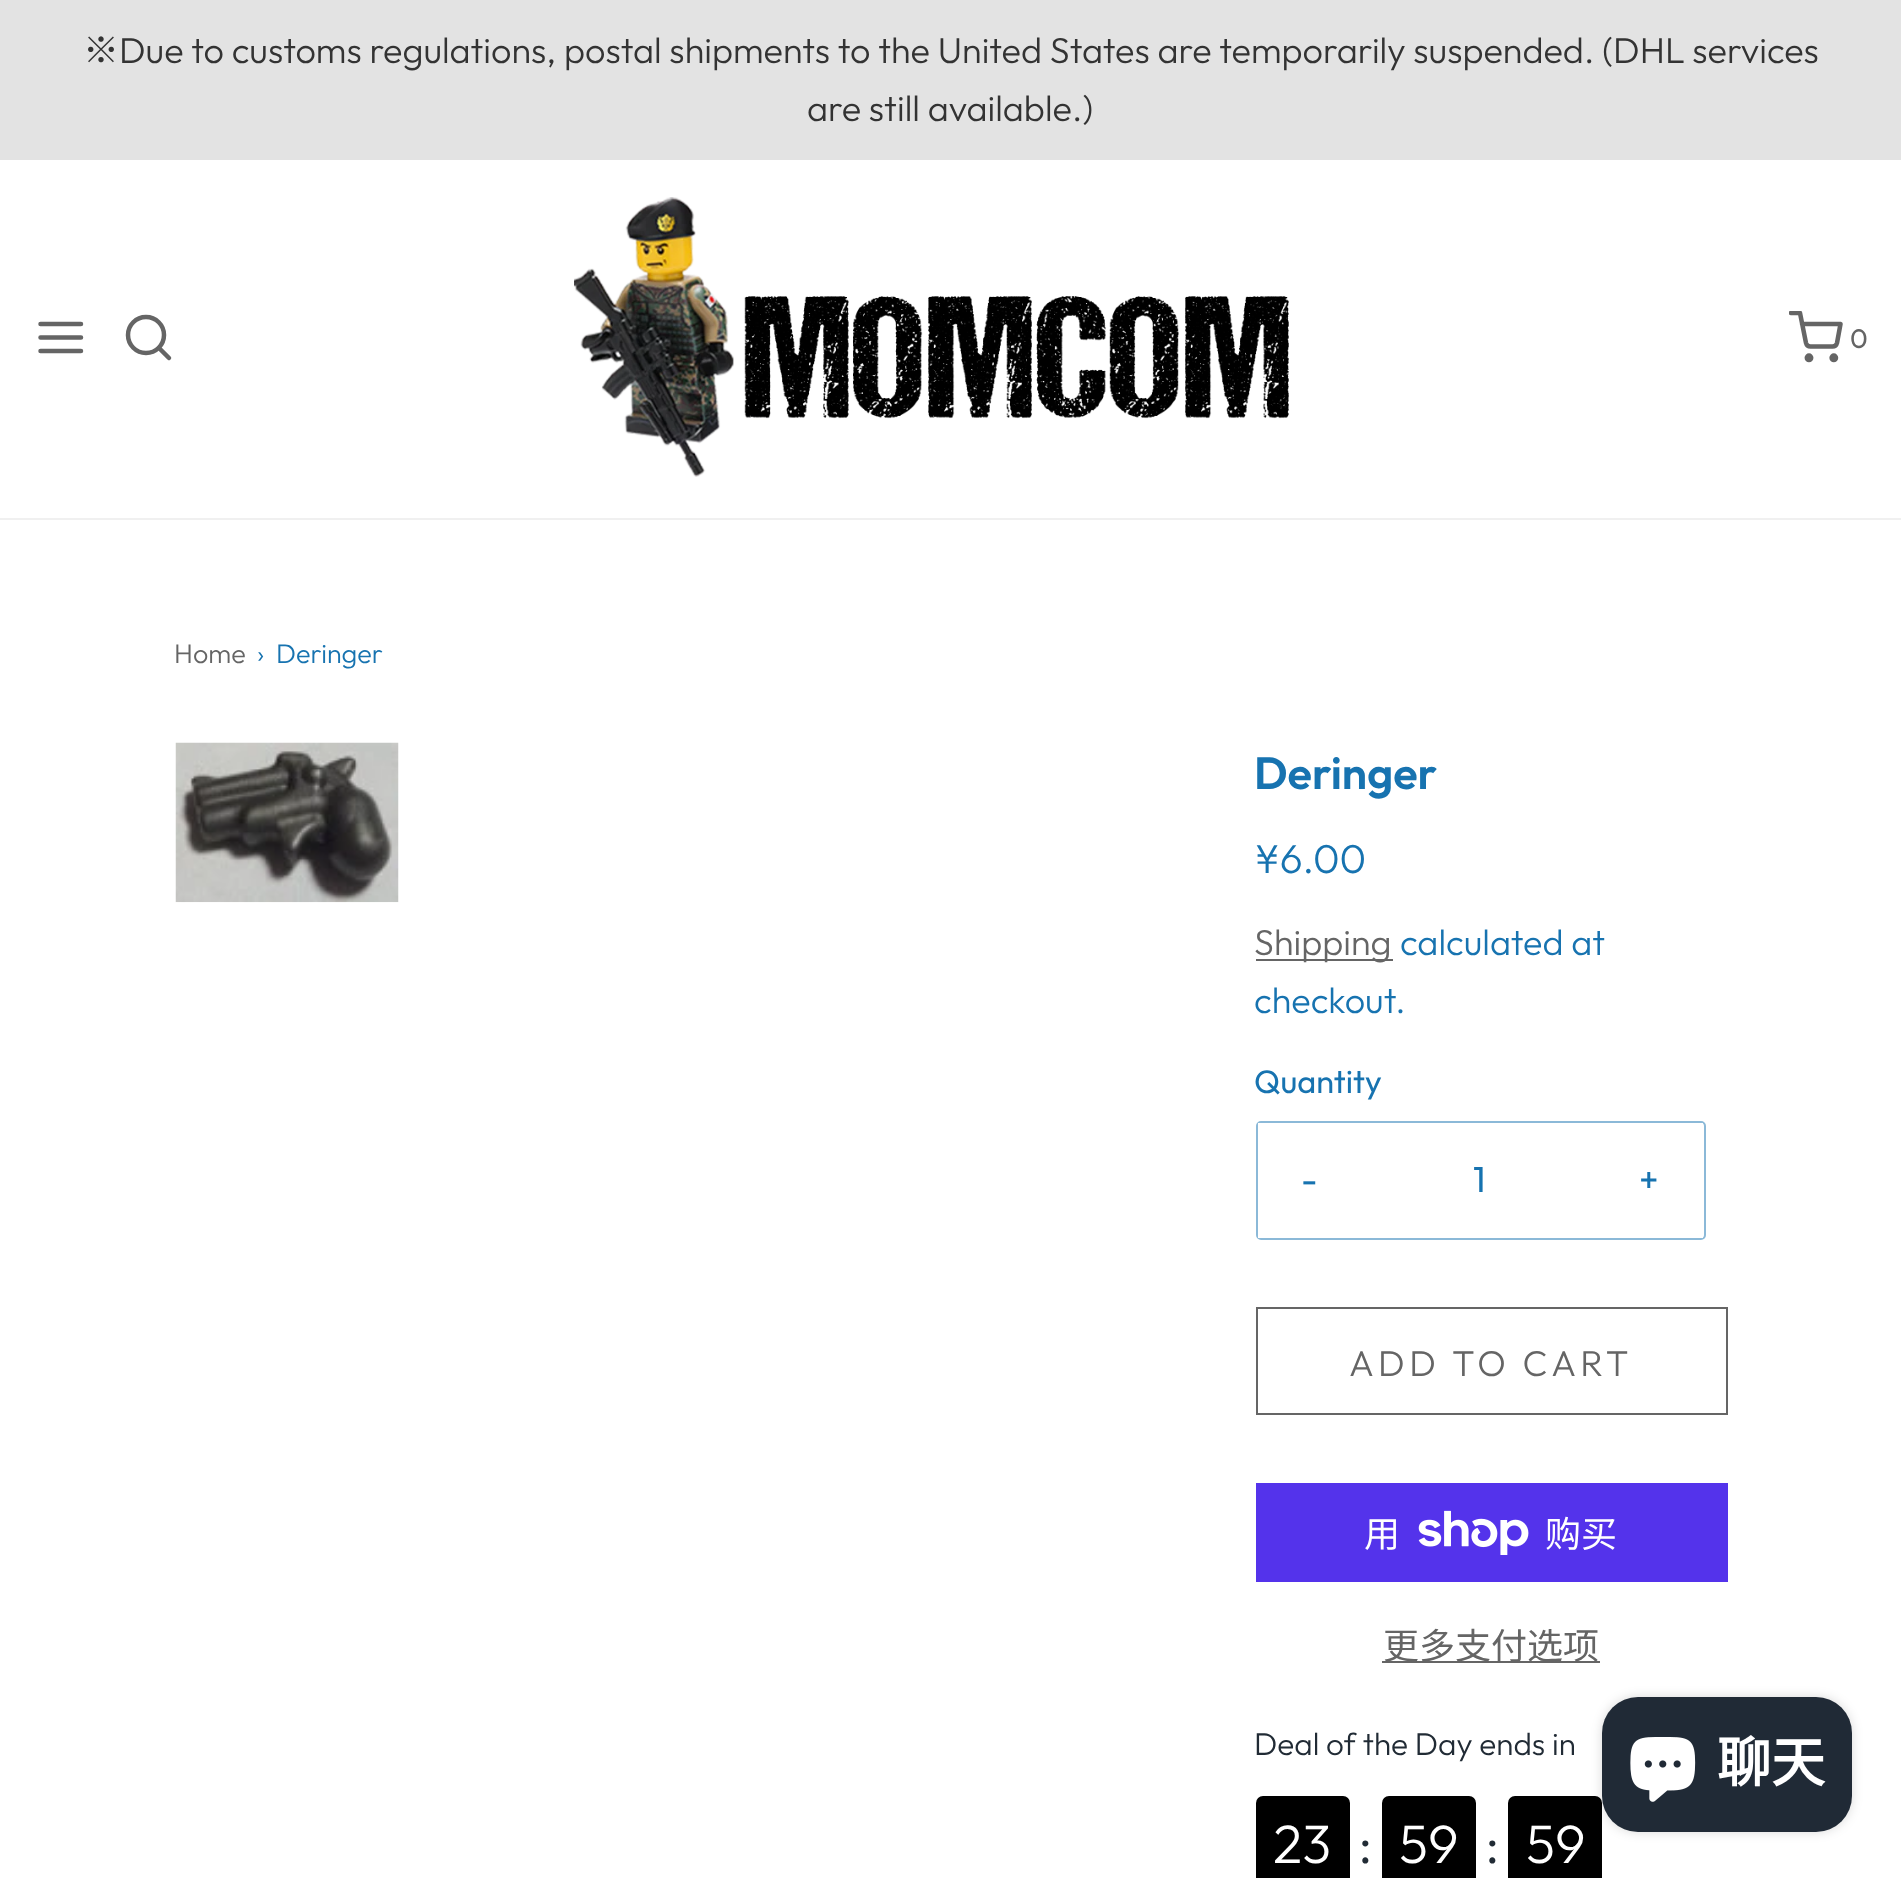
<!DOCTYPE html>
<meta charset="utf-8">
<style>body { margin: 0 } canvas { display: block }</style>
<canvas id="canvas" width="1901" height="1878"></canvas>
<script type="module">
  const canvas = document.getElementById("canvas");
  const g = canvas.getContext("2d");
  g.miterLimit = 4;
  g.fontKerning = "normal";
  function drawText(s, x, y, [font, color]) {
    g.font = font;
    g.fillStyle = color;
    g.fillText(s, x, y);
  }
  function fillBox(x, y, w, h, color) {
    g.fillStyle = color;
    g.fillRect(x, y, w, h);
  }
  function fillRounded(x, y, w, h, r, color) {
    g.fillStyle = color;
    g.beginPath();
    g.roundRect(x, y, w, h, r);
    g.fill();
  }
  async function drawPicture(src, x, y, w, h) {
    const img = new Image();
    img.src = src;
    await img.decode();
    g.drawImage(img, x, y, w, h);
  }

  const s1 = ["36px Noto Sans CJK SC", "#333333"];
  const s2 = ["300 36px Outfit", "#333333"];
  const s3 = ["27px Outfit", "#656565"];
  const s4 = ["300 27px Outfit", "#656565"];
  const s5 = ["300 27px Outfit", "#1773B0"];
  const s6 = ["600 45px Outfit", "#1773B0"];
  const s7 = ["300 40.5px Outfit", "#1773B0"];
  const s8 = ["300 36px Outfit", "#656565"];
  const s9 = ["300 36px Outfit", "#1773B0"];
  const s10 = ["32.5px Outfit", "#1773B0"];
  const s11 = ["36px Outfit", "#1773B0"];
  const s12 = ["36px Noto Sans CJK SC", "#FFFFFF"];
  const s13 = ["36px Noto Sans CJK SC", "#656565"];
  const s14 = ["300 31.5px Outfit", "#212B35"];
  const s15 = ["300 54px Outfit", "#FFFFFF"];
  const s16 = ["300 54px Outfit", "#212B35"];
  const s17 = ["bold 54px Noto Sans CJK SC", "#FFFFFF"];

  fillBox(0, 0, 1901, 1878, "#FFFFFF");
  fillBox(0, 0, 1901, 160, "#E3E3E3");
  drawText("※", 83, 63, s1);
  drawText("Due to customs regulations, postal shipments to the United States are temporarily suspended. (DHL services", 119, 63, s2);
  drawText("are still available.)", 807, 121, s2);
  fillBox(0, 518, 1901, 2, "#F0F0F0");
  g.beginPath();
  g.moveTo(40.5, 337.5);
  g.lineTo(81, 337.5);
  g.moveTo(40.5, 324);
  g.lineTo(81, 324);
  g.moveTo(40.5, 351);
  g.lineTo(81, 351);
  g.strokeStyle = "#656565";
  g.lineWidth = 4.5;
  g.lineCap = "round";
  g.lineJoin = "round";
  g.stroke();
  g.beginPath();
  g.arc(146, 335, 18, 0, Math.PI * 2);
  g.stroke();
  g.beginPath();
  g.moveTo(169, 358);
  g.lineTo(159, 348);
  g.stroke();
  await drawPicture("pic1.png", 574, 197, 715, 280);
  g.beginPath();
  g.arc(1809, 357.8, 2.2, 0, Math.PI * 2);
  g.stroke();
  g.beginPath();
  g.arc(1833.8, 357.8, 2.2, 0, Math.PI * 2);
  g.stroke();
  g.save();
  g.beginPath();
  g.rect(1789, 311, 54, 54);
  g.clip();
  g.beginPath();
  g.moveTo(1791, 313);
  g.lineTo(1800, 313);
  g.lineTo(1806, 343);
  g.bezierCurveTo(1806.5, 345, 1808.5, 346.5, 1810.5, 346.5);
  g.lineTo(1832.5, 346.5);
  g.bezierCurveTo(1834.5, 346.5, 1836.5, 345, 1837, 343);
  g.lineTo(1840.5, 324);
  g.lineTo(1802, 324);
  g.stroke();
  g.restore();
  drawText("0", 1850, 348, s3);
  drawText("Home", 174, 663, s4);
  drawText("›", 257, 663, s5);
  drawText("Deringer", 276, 663, s5);
  await drawPicture("pic2.png", 175, 742, 224, 161);
  drawText("Deringer", 1254, 789, s6);
  drawText("¥6.00", 1254, 873, s7);
  fillBox(1256, 959, 137, 2, "#656565");
  drawText("Shipping", 1254, 955, s8);
  drawText("calculated at", 1400, 955, s9);
  drawText("checkout.", 1254, 1013, s9);
  drawText("Quantity", 1254, 1093, s10);
  g.beginPath();
  g.roundRect(1257, 1122, 448, 117, 4);
  g.strokeStyle = "#8BB9D8";
  g.lineWidth = 2;
  g.lineJoin = "miter";
  g.stroke();
  fillBox(1258, 1123, 3, 115, "#FFFFFF");
  drawText("-", 1301, 1192, s11);
  drawText("1", 1473, 1192, s11);
  fillBox(1701, 1123, 2, 115, "#FFFFFF");
  drawText("+", 1639, 1192, s11);
  g.strokeStyle = "#656565";
  g.strokeRect(1257, 1308, 470, 106);
  g.letterSpacing = "4.5px";
  drawText("ADD TO CART", 1349, 1376, s8);
  fillBox(1256, 1483, 472, 99, "#5433EB");
  g.letterSpacing = "0px";
  drawText("用", 1364, 1547, s12);
  await drawPicture("pic3.png", 1418, 1510, 111, 45);
  drawText("购买", 1545, 1547, s12);
  fillBox(1382, 1661, 218, 2, "#656565");
  drawText("更多支付选项", 1383, 1659, s13);
  drawText("Deal of the Day ends in", 1254, 1755, s14);
  fillRounded(1256, 1796, 94, 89, 7, "#000000");
  drawText("23", 1273, 1863, s15);
  drawText(":", 1358, 1863, s16);
  fillRounded(1382, 1796, 94, 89, 7, "#000000");
  drawText("59", 1399, 1863, s15);
  drawText(":", 1485, 1863, s16);
  fillRounded(1508, 1796, 94, 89, 7, "#000000");
  drawText("59", 1526, 1863, s15);
  g.fillStyle = "rgba(0, 0, 0, 0.15)";
  g.filter = "blur(5.5px)";
  g.beginPath();
  g.roundRect(1602, 1697, 250, 135, 36);
  g.fill();
  g.filter = "none";
  fillRounded(1602, 1697, 250, 135, 36, "#202A36");
  await drawPicture("pic4.png", 1630, 1737, 66, 65);
  drawText("聊天", 1717, 1782, s17);
</script>
